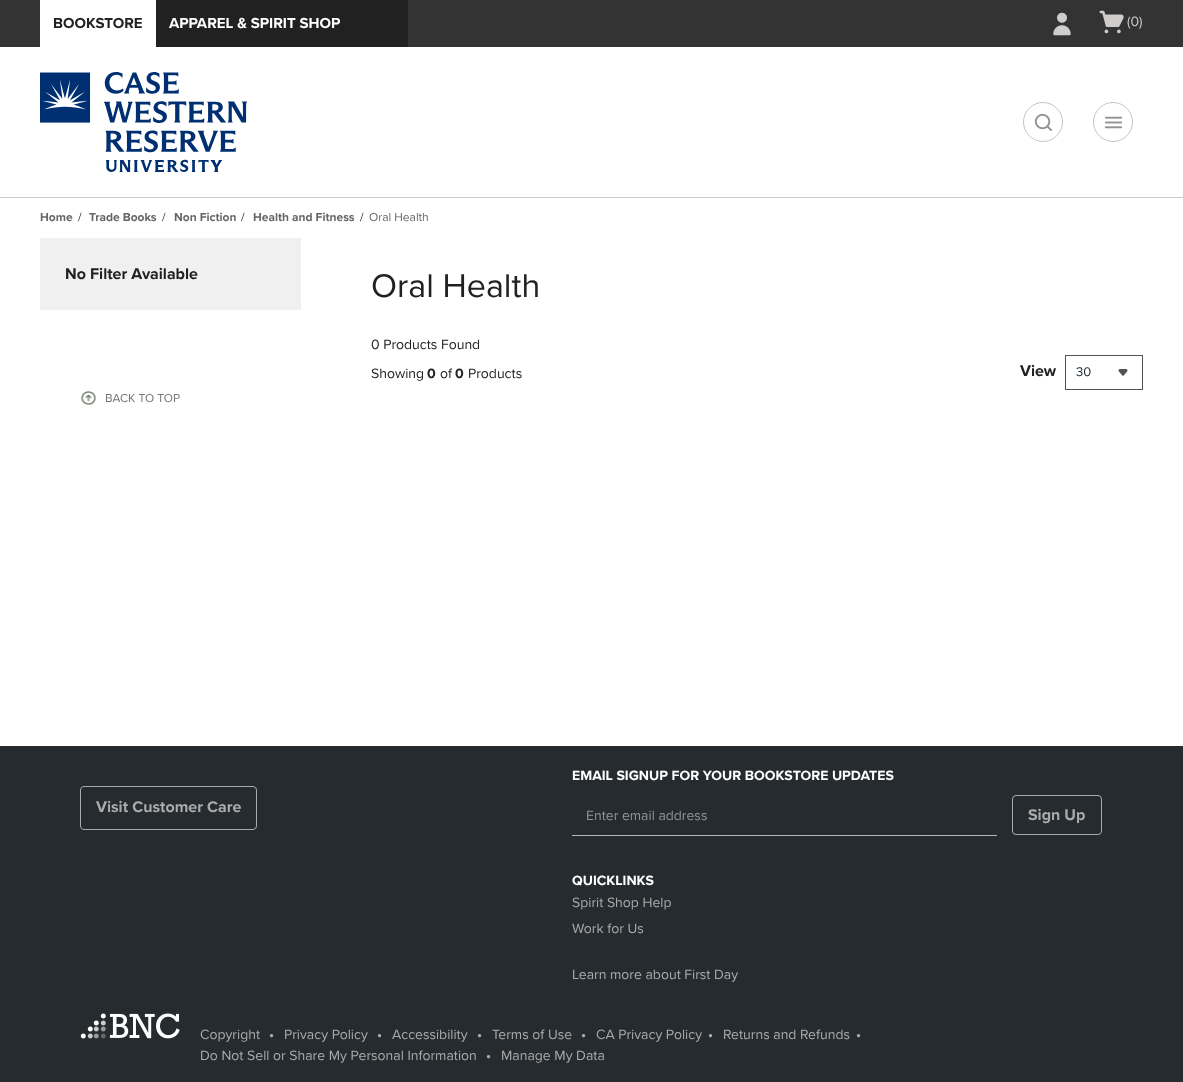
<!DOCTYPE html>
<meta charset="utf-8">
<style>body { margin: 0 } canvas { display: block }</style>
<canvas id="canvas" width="1183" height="1082"></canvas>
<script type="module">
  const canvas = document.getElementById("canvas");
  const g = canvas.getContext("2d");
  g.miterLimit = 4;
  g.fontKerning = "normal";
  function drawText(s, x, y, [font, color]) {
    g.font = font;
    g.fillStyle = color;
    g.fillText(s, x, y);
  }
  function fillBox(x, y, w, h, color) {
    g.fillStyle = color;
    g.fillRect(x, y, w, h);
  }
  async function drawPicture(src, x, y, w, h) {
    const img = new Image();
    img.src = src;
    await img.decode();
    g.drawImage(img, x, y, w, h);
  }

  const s1 = ["bold 15px Proxima Nova", "#212121"];
  const s2 = ["bold 15px Proxima Nova", "#FFFFFF"];
  const s3 = ["14px Proxima Nova", "#CECDCB"];
  const s4 = ["bold 12px Proxima Nova", "#666666"];
  const s5 = ["12px Proxima Nova", "#19212B"];
  const s6 = ["12px Proxima Nova", "#666666"];
  const s7 = ["bold 16px Proxima Nova", "#212121"];
  const s8 = ["34px Proxima Nova", "#212121"];
  const s9 = ["14px Proxima Nova", "#212121"];
  const s10 = ["bold 14px Proxima Nova", "#212121"];
  const s11 = ["13px Proxima Nova", "#19212B"];
  const s12 = ["12px Proxima Nova", "#757575"];
  const s13 = ["bold 16px Proxima Nova", "#ABABAB"];
  const s14 = ["bold 14px Proxima Nova", "#FFFFFF"];
  const s15 = ["14px Proxima Nova", "#939393"];
  const s16 = ["14px Proxima Nova", "#ABABAB"];
  const s17 = ["bold 14px Proxima Nova", "#ABABAB"];

  fillBox(0, 0, 1183, 1082, "#FFFFFF");
  fillBox(0, 0, 1183, 47, "#333333");
  fillBox(156, 0, 252, 47, "#212121");
  fillBox(40, 0, 116, 47, "#FFFFFF");
  drawText("BOOKSTORE", 53, 28, s1);
  drawText("APPAREL & SPIRIT SHOP", 169, 28, s2);
  await drawPicture("pic1.png", 1053, 12, 18, 24);
  await drawPicture("pic2.png", 1099, 10, 25, 24);
  drawText("(0)", 1127, 26, s3);
  fillBox(0, 197, 1183, 1, "#CCCCCC");
  await drawPicture("pic3.png", 40, 72, 207, 100);
  g.beginPath();
  g.arc(1043, 122, 19.5, 0, Math.PI * 2);
  g.strokeStyle = "#C5C5C5";
  g.stroke();
  await drawPicture("pic4.png", 1034, 113, 19, 19);
  g.beginPath();
  g.arc(1113, 122, 19.5, 0, Math.PI * 2);
  g.stroke();
  await drawPicture("pic5.png", 1104, 116, 19, 13);
  drawText("Home", 40, 221, s4);
  drawText("/", 78, 221, s5);
  drawText("Trade Books", 89, 221, s4);
  drawText("/", 162, 221, s5);
  drawText("Non Fiction", 174, 221, s4);
  drawText("/", 241, 221, s5);
  drawText("Health and Fitness", 253, 221, s4);
  drawText("/", 360, 221, s5);
  drawText("Oral Health", 369, 221, s6);
  fillBox(40, 238, 261, 72, "#F0F0F0");
  drawText("No Filter Available", 65, 279, s7);
  drawText("Oral Health", 371, 297, s8);
  drawText("0 Products Found", 371, 349, s9);
  drawText("Showing", 371, 378, s9);
  drawText("0", 427, 378, s10);
  drawText("of", 440, 378, s9);
  drawText("0", 455, 378, s10);
  drawText("Products", 468, 378, s9);
  drawText("View", 1020, 376, s7);
  await drawPicture("pic6.png", 1118, 369, 10, 7);
  g.strokeStyle = "#525252";
  g.strokeRect(1065.5, 355.5, 77, 34);
  drawText("30", 1076, 376, s11);
  await drawPicture("pic7.png", 81, 391, 15, 14);
  drawText("BACK TO TOP", 105, 402, s12);
  fillBox(0, 746, 1183, 336, "#252B2F");
  g.beginPath();
  g.roundRect(80.5, 786.5, 176, 43, 3.5);
  g.strokeStyle = "#ABABAB";
  g.stroke();
  drawText("Visit Customer Care", 96, 812, s13);
  drawText("EMAIL SIGNUP FOR YOUR BOOKSTORE UPDATES", 572, 780, s14);
  fillBox(572, 835, 425, 1, "#B7B7B7");
  drawText("Enter email address", 586, 820, s15);
  g.beginPath();
  g.roundRect(1012.5, 795.5, 89, 39, 3.5);
  g.stroke();
  drawText("Sign Up", 1028, 820, s13);
  drawText("QUICKLINKS", 572, 885, s14);
  drawText("Spirit Shop Help", 572, 907, s16);
  drawText("Work for Us", 572, 933, s16);
  drawText("Learn more about First Day", 572, 979, s16);
  await drawPicture("pic8.png", 80, 1013, 100, 26);
  drawText("Copyright", 200, 1039, s16);
  drawText("•", 269, 1039, s17);
  drawText("Privacy Policy", 284, 1039, s16);
  drawText("•", 377, 1039, s17);
  drawText("Accessibility", 392, 1039, s16);
  drawText("•", 477, 1039, s17);
  drawText("Terms of Use", 492, 1039, s16);
  drawText("•", 581, 1039, s17);
  drawText("CA Privacy Policy", 596, 1039, s16);
  drawText("•", 708, 1039, s17);
  drawText("Returns and Refunds", 723, 1039, s16);
  drawText("•", 856, 1039, s17);
  drawText("Do Not Sell or Share My Personal Information", 200, 1060, s16);
  drawText("•", 486, 1060, s17);
  drawText("Manage My Data", 501, 1060, s16);
</script>
